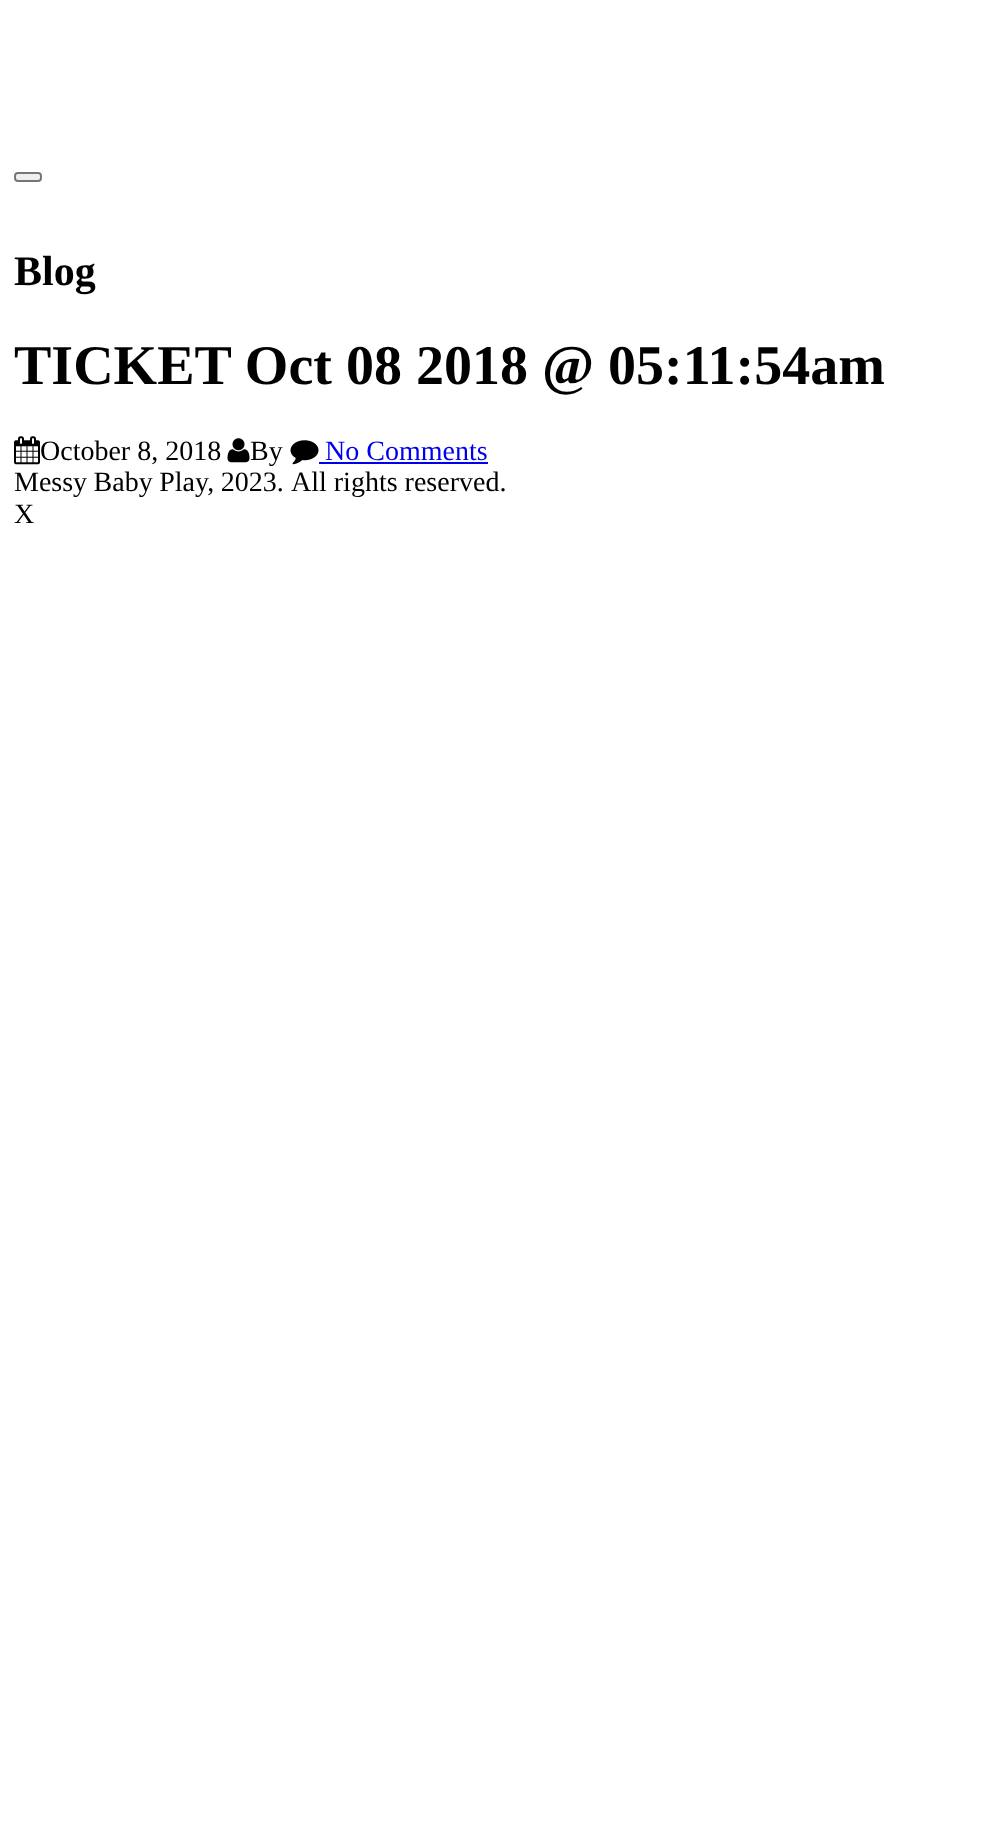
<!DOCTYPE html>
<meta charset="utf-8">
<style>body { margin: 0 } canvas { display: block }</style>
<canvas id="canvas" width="1007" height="1826"></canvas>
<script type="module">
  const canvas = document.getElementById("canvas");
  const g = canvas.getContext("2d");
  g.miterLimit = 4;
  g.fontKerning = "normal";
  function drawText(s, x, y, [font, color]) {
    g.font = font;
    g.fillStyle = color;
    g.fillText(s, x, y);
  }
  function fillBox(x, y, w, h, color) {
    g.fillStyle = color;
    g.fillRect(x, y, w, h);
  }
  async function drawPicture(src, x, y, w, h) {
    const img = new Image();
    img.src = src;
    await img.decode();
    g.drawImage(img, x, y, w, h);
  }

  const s1 = ["bold 42px Liberation Serif", "#000000"];
  const s2 = ["bold 56px Liberation Serif", "#000000"];
  const s3 = ["28px Liberation Serif", "#000000"];
  const s4 = ["28px Liberation Serif", "#0000EE"];

  fillBox(0, 0, 1007, 1826, "#FFFFFF");
  g.fillStyle = "#EFEFEF";
  g.beginPath();
  g.roundRect(15, 173, 26, 8, 3);
  g.fill();
  g.strokeStyle = "#767676";
  g.lineWidth = 2;
  g.stroke();
  drawText("Blog", 14, 285, s1);
  drawText("TICKET Oct 08 2018 @ 05:11:54am", 14, 384, s2);
  await drawPicture("pic1.png", 14, 436, 26, 29);
  drawText("October 8, 2018", 40, 460, s3);
  await drawPicture("pic2.png", 227, 438, 23, 25);
  drawText("By", 250, 460, s3);
  await drawPicture("pic3.png", 290, 440, 29, 25);
  drawText("No Comments", 325, 460, s4);
  fillBox(319, 462, 169, 2, "#0000EE");
  g.wordSpacing = "-0.5px";
  drawText("Messy Baby Play, 2023.", 14, 491, s3);
  g.wordSpacing = "0px";
  drawText("All rights reserved.", 291, 491, s3);
  drawText("X", 14, 523, s3);
</script>
